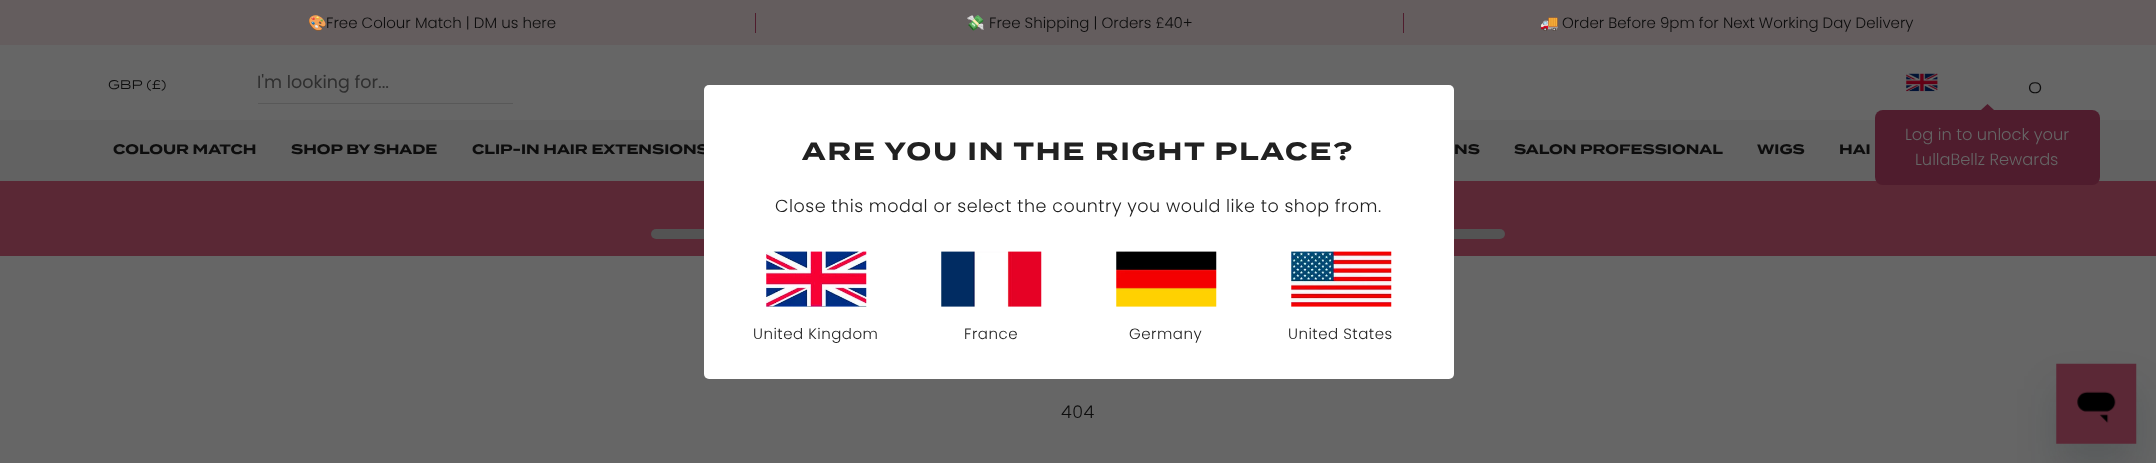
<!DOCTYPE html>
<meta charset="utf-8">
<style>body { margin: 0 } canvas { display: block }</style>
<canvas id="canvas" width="2156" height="463"></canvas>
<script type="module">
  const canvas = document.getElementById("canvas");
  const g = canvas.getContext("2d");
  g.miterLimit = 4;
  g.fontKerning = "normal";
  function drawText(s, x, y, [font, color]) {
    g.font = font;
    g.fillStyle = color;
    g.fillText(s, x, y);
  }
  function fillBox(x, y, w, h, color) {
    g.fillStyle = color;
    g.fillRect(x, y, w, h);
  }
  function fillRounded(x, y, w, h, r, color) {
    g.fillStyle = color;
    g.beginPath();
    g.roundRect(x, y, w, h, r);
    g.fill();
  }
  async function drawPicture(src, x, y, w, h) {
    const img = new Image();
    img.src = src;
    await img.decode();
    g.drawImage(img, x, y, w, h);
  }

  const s1 = ["15px Noto Color Emoji", "#0D0D0D"];
  const s2 = ["300 15px Poppins", "#0D0D0D"];
  const s3 = ["12.5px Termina", "#0D0D0D"];
  const s4 = ["17.5px Poppins", "#2F2F2F"];
  const s5 = ["15px Termina", "#0D0D0D"];
  const s6 = ["300 16.25px Poppins", "#666666"];
  const s7 = ["bold 13.75px Termina", "#0D0D0D"];
  const s8 = ["bold 25px Termina", "#212121"];
  const s9 = ["300 17.5px Poppins", "#212121"];
  const s10 = ["300 15px Poppins", "#212121"];
  const s11 = ["300 17.5px Poppins", "#0D0D0D"];

  fillBox(0, 0, 2156, 463, "#666666");
  fillBox(0, 0, 2156, 45, "#645D5E");
  drawText("🎨", 308, 28, s1);
  drawText("Free Colour Match | DM us here", 326, 28, s2);
  fillBox(755, 13, 1, 20, "#4F1C2D");
  drawText("💸", 966, 28, s1);
  drawText("Free Shipping | Orders £40+", 989, 28, s2);
  fillBox(1403, 13, 1, 20, "#4F1C2D");
  drawText("🚚", 1540, 28, s1);
  drawText("Order Before 9pm for Next Working Day Delivery", 1562, 28, s2);
  drawText("GBP (£)", 108, 89, s3);
  fillBox(258, 103, 255, 1, "#585858");
  drawText("I'm looking for...", 257, 88, s4);
  await drawPicture("pic1.png", 1906, 73, 32, 19);
  drawText("0", 2028, 93, s5);
  g.fillStyle = "#4F1C2D";
  g.beginPath();
  g.moveTo(1994, 110);
  g.lineTo(1981, 110);
  g.lineTo(1987.5, 104);
  g.closePath();
  g.fill();
  fillBox(0, 120, 2156, 61, "#626262");
  fillBox(0, 181, 2156, 75, "#5A2835");
  fillRounded(1875, 110, 225, 75, 8, "#4F1C2D");
  drawText("Log in to unlock your", 1905, 140, s6);
  drawText("LullaBellz Rewards", 1915, 165, s6);
  drawText("COLOUR MATCH", 113, 154, s7);
  drawText("SHOP BY SHADE", 291, 154, s7);
  drawText("CLIP-IN HAIR EXTENSIONS", 472, 154, s7);
  drawText("NS", 1454, 154, s7);
  drawText("SALON PROFESSIONAL", 1514, 154, s7);
  drawText("WIGS", 1757, 154, s7);
  drawText("HAI", 1839, 154, s7);
  fillRounded(651, 229, 854, 10, 5, "#535353");
  fillRounded(704, 85, 750, 294, 5, "#FFFFFF");
  g.letterSpacing = "2px";
  drawText("ARE YOU IN THE RIGHT PLACE?", 802, 160, s8);
  g.letterSpacing = "0.5px";
  drawText("Close this modal or select the country you would like to shop from.", 775, 212, s9);
  await drawPicture("pic2.png", 766, 251, 101, 56);
  drawText("United Kingdom", 753, 339, s10);
  await drawPicture("pic3.png", 941, 251, 101, 56);
  drawText("France", 964, 339, s10);
  await drawPicture("pic4.png", 1116, 251, 101, 56);
  drawText("Germany", 1129, 339, s10);
  await drawPicture("pic5.png", 1291, 251, 101, 56);
  drawText("United States", 1288, 339, s10);
  drawText("404", 1061, 418, s11);
  g.fillStyle = "rgba(9, 29, 31, 0.15)";
  g.filter = "blur(19px)";
  g.beginPath();
  g.rect(2056, 389, 80, 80);
  g.fill();
  g.filter = "none";
  await drawPicture("pic6.png", 2056, 363, 81, 81);
</script>
